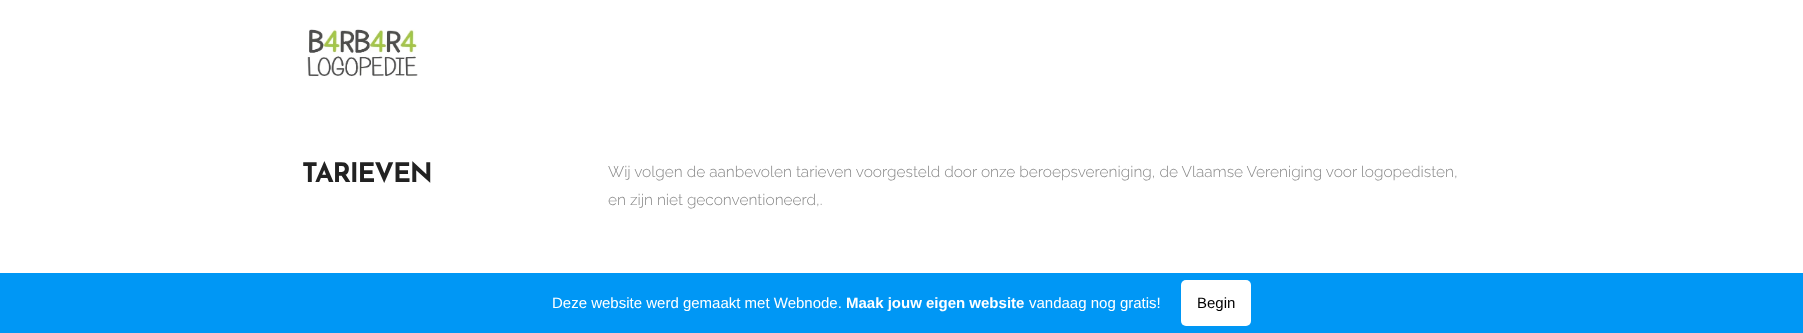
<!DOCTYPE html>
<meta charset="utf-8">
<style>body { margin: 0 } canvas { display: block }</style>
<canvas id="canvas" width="1803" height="333"></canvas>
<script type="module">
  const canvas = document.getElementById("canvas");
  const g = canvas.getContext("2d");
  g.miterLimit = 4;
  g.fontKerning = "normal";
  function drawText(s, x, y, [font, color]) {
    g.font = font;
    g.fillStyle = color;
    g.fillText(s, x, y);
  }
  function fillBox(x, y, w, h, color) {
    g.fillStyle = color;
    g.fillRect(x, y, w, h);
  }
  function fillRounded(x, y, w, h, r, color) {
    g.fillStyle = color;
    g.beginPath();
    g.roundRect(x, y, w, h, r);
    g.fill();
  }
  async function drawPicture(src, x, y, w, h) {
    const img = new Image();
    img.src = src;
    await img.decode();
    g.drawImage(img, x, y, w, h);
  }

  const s1 = ["bold 27px Josefin Sans", "#222222"];
  const s2 = ["300 15.48px Raleway", "#888888"];
  const s3 = ["15px Liberation Sans", "#FFFFFF"];
  const s4 = ["bold 15px Liberation Sans", "#FFFFFF"];
  const s5 = ["15px Liberation Sans", "#000000"];

  fillBox(0, 0, 1803, 333, "#FFFFFF");
  await drawPicture("pic1.png", 307, 29, 111, 48);
  g.letterSpacing = "-1.25px";
  drawText("TARIEVEN", 302, 182, s1);
  g.letterSpacing = "0px";
  drawText("Wij volgen de aanbevolen tarieven voorgesteld door onze beroepsvereniging, de Vlaamse Vereniging voor logopedisten,", 608, 177, s2);
  drawText("en zijn niet geconventioneerd,.", 608, 205, s2);
  fillBox(0, 273, 1803, 60, "#0097F5");
  drawText("Deze website werd gemaakt met Webnode.", 552, 308, s3);
  drawText("Maak jouw eigen website", 846, 308, s4);
  drawText("vandaag nog gratis!", 1029, 308, s3);
  fillRounded(1181, 280, 70, 46, 5, "#FFFFFF");
  drawText("Begin", 1197, 308, s5);
</script>
